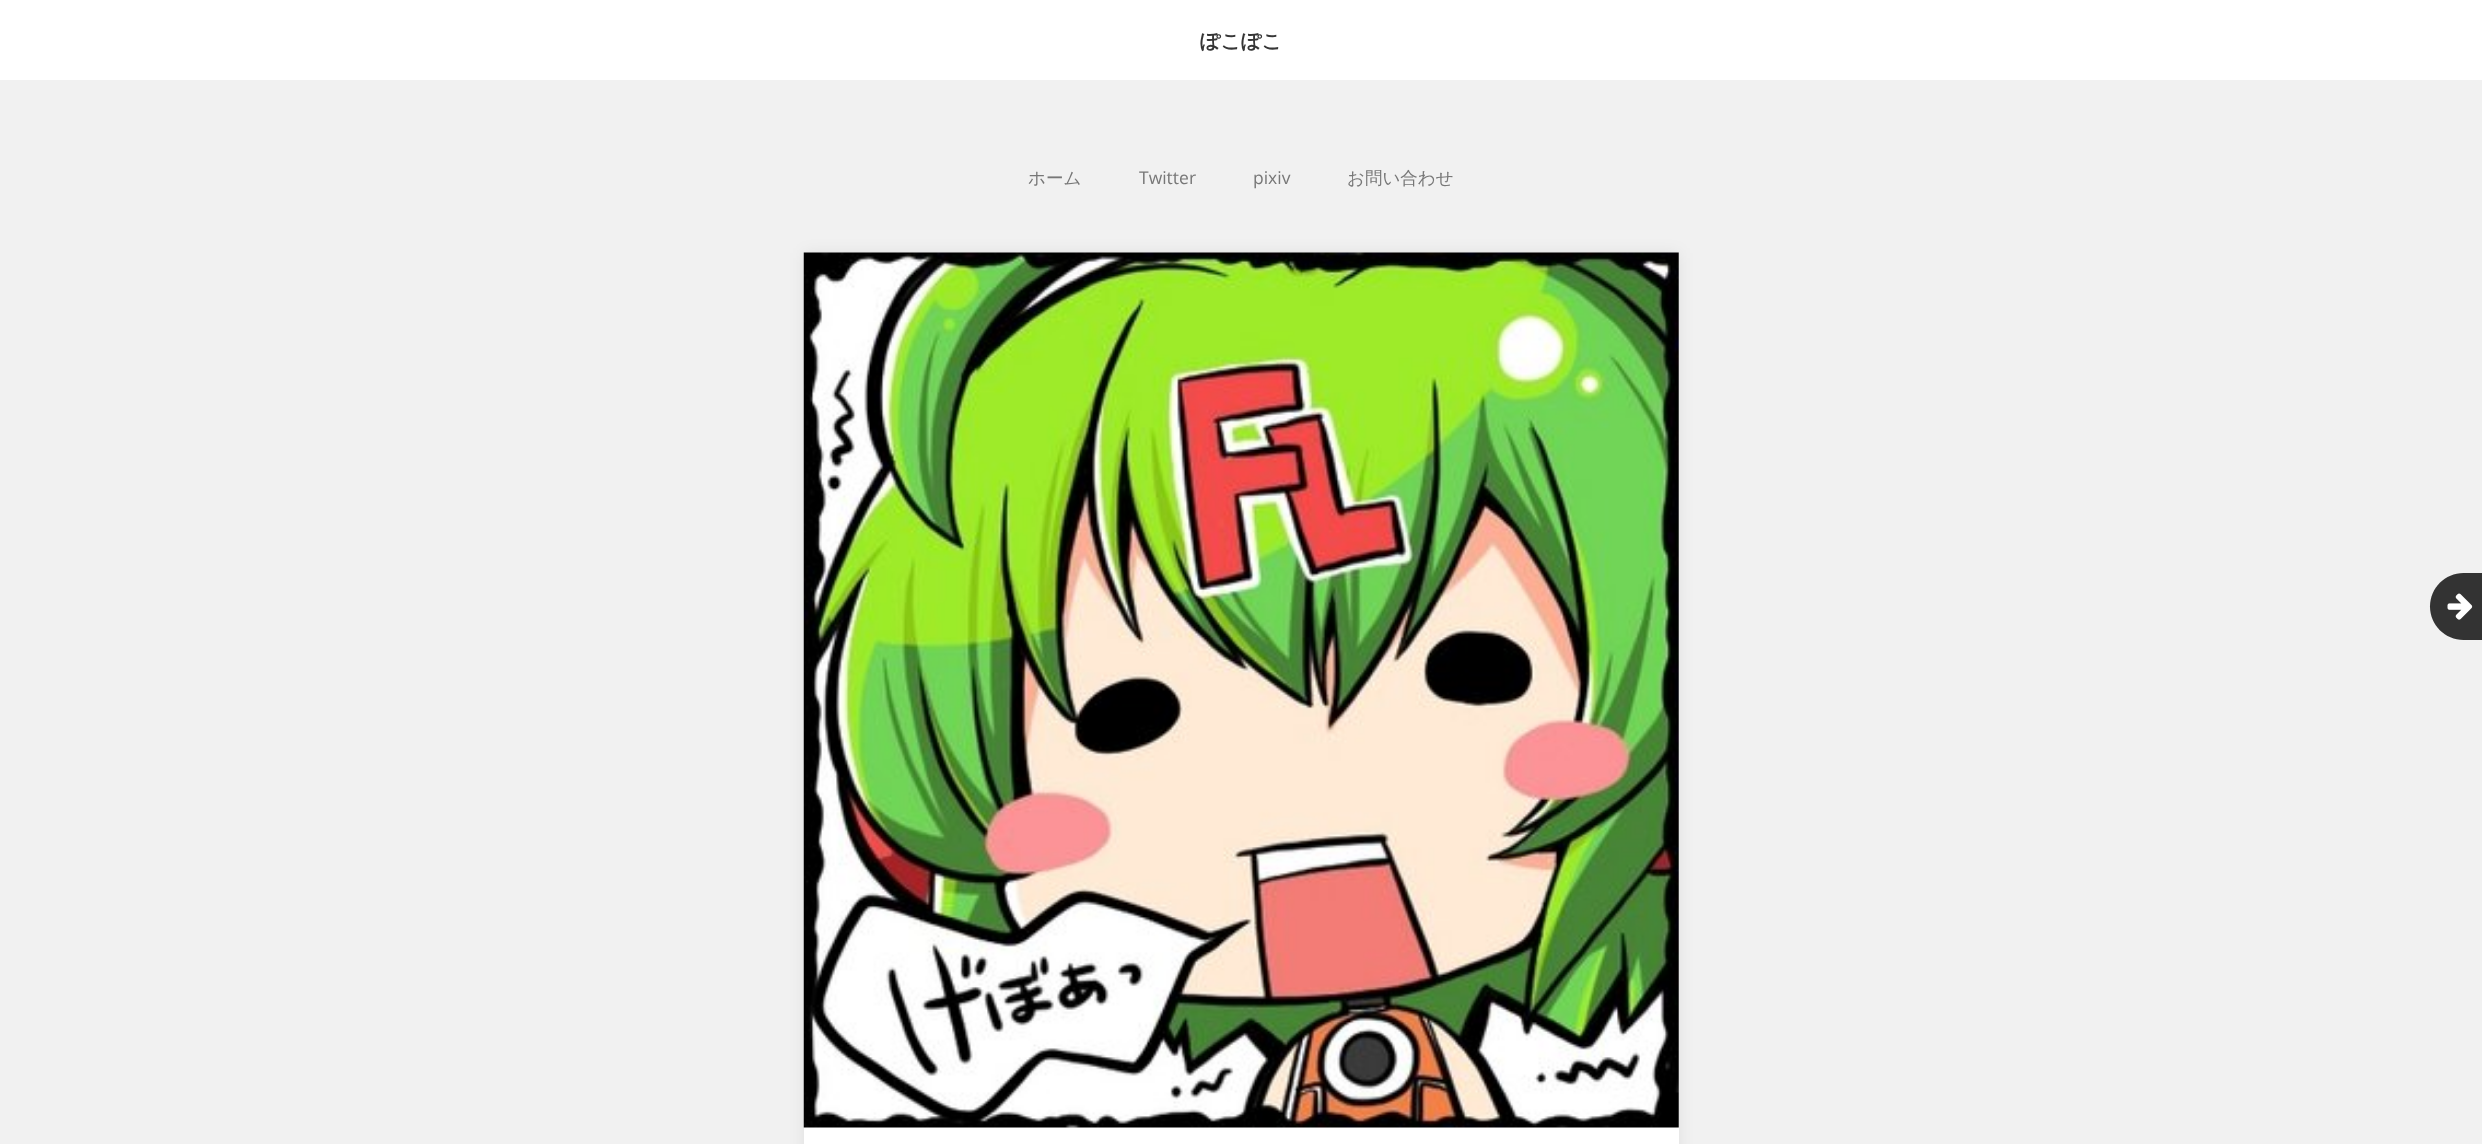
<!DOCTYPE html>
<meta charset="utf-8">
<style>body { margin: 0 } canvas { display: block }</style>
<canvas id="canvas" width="2482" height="1144"></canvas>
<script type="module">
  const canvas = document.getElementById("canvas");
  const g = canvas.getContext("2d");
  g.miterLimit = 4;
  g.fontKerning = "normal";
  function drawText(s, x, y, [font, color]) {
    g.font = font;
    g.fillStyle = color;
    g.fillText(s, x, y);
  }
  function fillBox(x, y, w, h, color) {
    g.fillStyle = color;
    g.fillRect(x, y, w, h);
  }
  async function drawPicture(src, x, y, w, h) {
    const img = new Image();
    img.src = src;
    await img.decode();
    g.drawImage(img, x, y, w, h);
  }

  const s1 = ["bold 20px WenQuanYi Zen Hei", "#363636"];
  const s2 = ["500 17.5px WenQuanYi Zen Hei", "#777777"];
  const s3 = ["17.5px Open Sans", "#777777"];

  fillBox(0, 0, 2482, 1144, "#FFFFFF");
  drawText("ぽこぽこ", 1200, 48, s1);
  fillBox(0, 80, 2482, 1064, "#F1F1F1");
  drawText("ホーム", 1028, 184, s2);
  drawText("Twitter", 1139, 184, s3);
  drawText("pixiv", 1253, 184, s3);
  drawText("お問い合わせ", 1347, 184, s2);
  g.fillStyle = "rgba(0, 0, 0, 0.07)";
  g.filter = "blur(8px)";
  g.beginPath();
  g.rect(804, 253, 875, 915);
  g.fill();
  g.filter = "none";
  fillBox(804, 253, 875, 891, "#FFFFFF");
  await drawPicture("pic1.png", 803, 252, 876, 876);
  g.fillStyle = "#333333";
  g.beginPath();
  g.moveTo(2463.5, 573);
  g.lineTo(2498, 573);
  g.lineTo(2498, 640);
  g.lineTo(2463.5, 640);
  g.bezierCurveTo(2445, 640, 2430, 625, 2430, 606.5);
  g.bezierCurveTo(2430, 588, 2445, 573, 2463.5, 573);
  g.closePath();
  g.fill();
  await drawPicture("pic2.png", 2447, 593, 26, 27);
</script>
